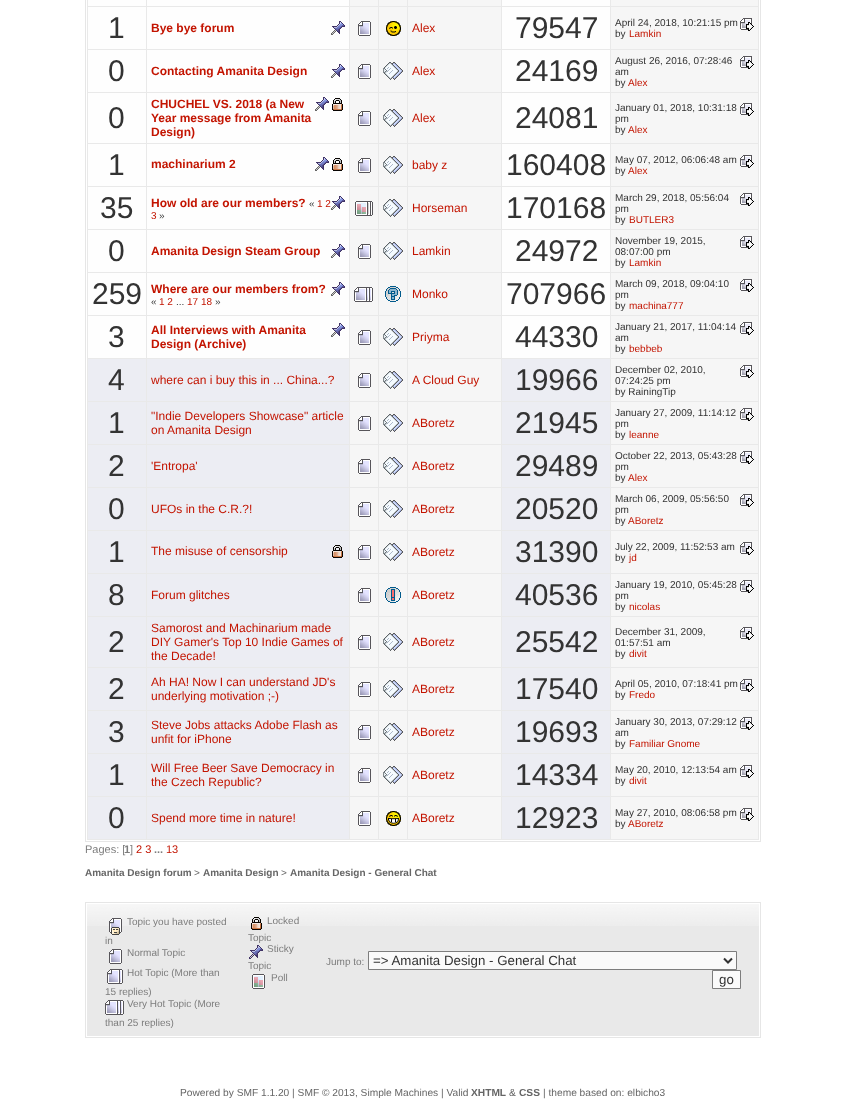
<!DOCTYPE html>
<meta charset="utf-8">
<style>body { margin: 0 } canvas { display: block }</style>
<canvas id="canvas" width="845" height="1108"></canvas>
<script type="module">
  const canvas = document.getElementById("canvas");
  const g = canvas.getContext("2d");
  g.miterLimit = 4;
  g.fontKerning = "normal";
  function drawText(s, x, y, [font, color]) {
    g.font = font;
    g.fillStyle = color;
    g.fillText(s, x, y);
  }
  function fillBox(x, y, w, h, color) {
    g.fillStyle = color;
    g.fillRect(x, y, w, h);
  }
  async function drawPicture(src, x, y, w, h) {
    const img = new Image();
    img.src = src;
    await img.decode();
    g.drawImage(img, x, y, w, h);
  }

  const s1 = ["30px Liberation Sans", "#333333"];
  const s2 = ["bold 12px Liberation Sans", "#C31401"];
  const s3 = ["12px Liberation Sans", "#C31401"];
  const s4 = ["10px Liberation Sans", "#333333"];
  const s5 = ["10px Liberation Sans", "#C31401"];
  const s6 = ["11px Liberation Sans", "#7D7D7D"];
  const s7 = ["bold 11px Liberation Sans", "#7D7D7D"];
  const s8 = ["11px Liberation Sans", "#C31401"];
  const s9 = ["bold 10px Liberation Sans", "#666666"];
  const s10 = ["10px Liberation Sans", "#666666"];
  const s11 = ["10px Liberation Sans", "#7D7D7D"];
  const s12 = ["13.3px Liberation Sans", "#333333"];
  const s13 = ["10.2px Liberation Sans", "#666666"];
  const s14 = ["bold 10.2px Liberation Sans", "#666666"];

  fillBox(0, 0, 845, 1108, "#FFFFFF");
  g.strokeStyle = "#E6E6E6";
  g.strokeRect(85.5, -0.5, 675, 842);
  fillBox(87, 0, 672, 840, "#E9E9E9");
  fillBox(88, 0, 58, 6, "#FEFEFE");
  fillBox(147, 0, 202, 6, "#FEFEFE");
  fillBox(350, 0, 28, 6, "#F6F6F6");
  fillBox(379, 0, 28, 6, "#F6F6F6");
  fillBox(408, 0, 93, 6, "#F6F6F6");
  fillBox(502, 0, 108, 6, "#FEFEFE");
  fillBox(611, 0, 147, 6, "#F6F6F6");
  fillBox(88, 7, 58, 42, "#FEFEFE");
  drawText("1", 108, 38, s1);
  fillBox(147, 7, 202, 42, "#FEFEFE");
  drawText("Bye bye forum", 151, 32, s2);
  await drawPicture("pic1.png", 331, 21, 14, 14);
  fillBox(350, 7, 28, 42, "#F6F6F6");
  await drawPicture("pic2.png", 358, 21, 13, 15);
  fillBox(379, 7, 28, 42, "#F6F6F6");
  await drawPicture("pic3.png", 386, 21, 15, 15);
  fillBox(408, 7, 93, 42, "#F6F6F6");
  drawText("Alex", 412, 32, s3);
  fillBox(502, 7, 108, 42, "#FEFEFE");
  drawText("79547", 515, 38, s1);
  fillBox(611, 7, 147, 42, "#F6F6F6");
  drawText("April 24, 2018, 10:21:15 pm", 615, 26, s4);
  await drawPicture("pic4.png", 740, 18, 14, 13);
  drawText("by", 615, 37, s4);
  drawText("Lamkin", 629, 37, s5);
  fillBox(88, 50, 58, 42, "#FEFEFE");
  drawText("0", 108, 81, s1);
  fillBox(147, 50, 202, 42, "#FEFEFE");
  drawText("Contacting Amanita Design", 151, 75, s2);
  await drawPicture("pic1.png", 331, 64, 14, 14);
  fillBox(350, 50, 28, 42, "#F6F6F6");
  await drawPicture("pic2.png", 358, 64, 13, 15);
  fillBox(379, 50, 28, 42, "#F6F6F6");
  await drawPicture("pic5.png", 383, 62, 20, 18);
  fillBox(408, 50, 93, 42, "#F6F6F6");
  drawText("Alex", 412, 75, s3);
  fillBox(502, 50, 108, 42, "#FEFEFE");
  drawText("24169", 515, 81, s1);
  fillBox(611, 50, 147, 42, "#F6F6F6");
  drawText("August 26, 2016, 07:28:46", 615, 64, s4);
  await drawPicture("pic4.png", 740, 56, 14, 13);
  drawText("am", 615, 75, s4);
  drawText("by", 615, 86, s4);
  drawText("Alex", 628, 86, s5);
  fillBox(88, 93, 58, 50, "#FEFEFE");
  drawText("0", 108, 128, s1);
  fillBox(147, 93, 202, 50, "#FEFEFE");
  drawText("CHUCHEL VS. 2018 (a New", 151, 108, s2);
  await drawPicture("pic1.png", 315, 97, 14, 14);
  await drawPicture("pic6.png", 332, 98, 11, 13);
  drawText("Year message from Amanita", 151, 122, s2);
  drawText("Design)", 151, 136, s2);
  fillBox(350, 93, 28, 50, "#F6F6F6");
  await drawPicture("pic2.png", 358, 111, 13, 15);
  fillBox(379, 93, 28, 50, "#F6F6F6");
  await drawPicture("pic5.png", 383, 109, 20, 18);
  fillBox(408, 93, 93, 50, "#F6F6F6");
  drawText("Alex", 412, 122, s3);
  fillBox(502, 93, 108, 50, "#FEFEFE");
  drawText("24081", 515, 128, s1);
  fillBox(611, 93, 147, 50, "#F6F6F6");
  drawText("January 01, 2018, 10:31:18", 615, 111, s4);
  await drawPicture("pic4.png", 740, 103, 14, 13);
  drawText("pm", 615, 122, s4);
  drawText("by", 615, 133, s4);
  drawText("Alex", 628, 133, s5);
  fillBox(88, 144, 58, 42, "#FEFEFE");
  drawText("1", 108, 175, s1);
  fillBox(147, 144, 202, 42, "#FEFEFE");
  drawText("machinarium 2", 151, 168, s2);
  await drawPicture("pic1.png", 315, 157, 14, 14);
  await drawPicture("pic6.png", 332, 158, 11, 13);
  fillBox(350, 144, 28, 42, "#F6F6F6");
  await drawPicture("pic2.png", 358, 158, 13, 15);
  fillBox(379, 144, 28, 42, "#F6F6F6");
  await drawPicture("pic5.png", 383, 156, 20, 18);
  fillBox(408, 144, 93, 42, "#F6F6F6");
  drawText("baby z", 412, 169, s3);
  fillBox(502, 144, 108, 42, "#FEFEFE");
  drawText("160408", 506, 175, s1);
  fillBox(611, 144, 147, 42, "#F6F6F6");
  drawText("May 07, 2012, 06:06:48 am", 615, 163, s4);
  await drawPicture("pic4.png", 740, 155, 14, 13);
  drawText("by", 615, 174, s4);
  drawText("Alex", 628, 174, s5);
  fillBox(88, 187, 58, 42, "#FEFEFE");
  drawText("35", 100, 218, s1);
  fillBox(147, 187, 202, 42, "#FEFEFE");
  drawText("How old are our members?", 151, 207, s2);
  drawText("«", 309, 207, s4);
  drawText("1 2", 317, 207, s5);
  await drawPicture("pic1.png", 331, 196, 14, 14);
  drawText("3", 151, 219, s5);
  drawText("»", 159, 219, s4);
  fillBox(350, 187, 28, 42, "#F6F6F6");
  await drawPicture("pic7.png", 355, 201, 18, 15);
  fillBox(379, 187, 28, 42, "#F6F6F6");
  await drawPicture("pic5.png", 383, 199, 20, 18);
  fillBox(408, 187, 93, 42, "#F6F6F6");
  drawText("Horseman", 412, 212, s3);
  fillBox(502, 187, 108, 42, "#FEFEFE");
  drawText("170168", 506, 218, s1);
  fillBox(611, 187, 147, 42, "#F6F6F6");
  drawText("March 29, 2018, 05:56:04", 615, 201, s4);
  await drawPicture("pic4.png", 740, 193, 14, 13);
  drawText("pm", 615, 212, s4);
  drawText("by", 615, 223, s4);
  drawText("BUTLER3", 629, 223, s5);
  fillBox(88, 230, 58, 42, "#FEFEFE");
  drawText("0", 108, 261, s1);
  fillBox(147, 230, 202, 42, "#FEFEFE");
  drawText("Amanita Design Steam Group", 151, 255, s2);
  await drawPicture("pic1.png", 331, 244, 14, 14);
  fillBox(350, 230, 28, 42, "#F6F6F6");
  await drawPicture("pic2.png", 358, 244, 13, 15);
  fillBox(379, 230, 28, 42, "#F6F6F6");
  await drawPicture("pic5.png", 383, 242, 20, 18);
  fillBox(408, 230, 93, 42, "#F6F6F6");
  drawText("Lamkin", 412, 255, s3);
  fillBox(502, 230, 108, 42, "#FEFEFE");
  drawText("24972", 515, 261, s1);
  fillBox(611, 230, 147, 42, "#F6F6F6");
  drawText("November 19, 2015,", 615, 244, s4);
  await drawPicture("pic4.png", 740, 236, 14, 13);
  drawText("08:07:00 pm", 615, 255, s4);
  drawText("by", 615, 266, s4);
  drawText("Lamkin", 629, 266, s5);
  fillBox(88, 273, 58, 42, "#FEFEFE");
  drawText("259", 92, 304, s1);
  fillBox(147, 273, 202, 42, "#FEFEFE");
  drawText("Where are our members from?", 151, 293, s2);
  await drawPicture("pic1.png", 331, 282, 14, 14);
  drawText("«", 151, 305, s4);
  drawText("1 2", 159, 305, s5);
  drawText("...", 176, 305, s4);
  drawText("17 18", 187, 305, s5);
  drawText("»", 215, 305, s4);
  fillBox(350, 273, 28, 42, "#F6F6F6");
  await drawPicture("pic8.png", 354, 287, 19, 15);
  fillBox(379, 273, 28, 42, "#F6F6F6");
  await drawPicture("pic9.png", 385, 286, 16, 16);
  fillBox(408, 273, 93, 42, "#F6F6F6");
  drawText("Monko", 412, 298, s3);
  fillBox(502, 273, 108, 42, "#FEFEFE");
  drawText("707966", 506, 304, s1);
  fillBox(611, 273, 147, 42, "#F6F6F6");
  drawText("March 09, 2018, 09:04:10", 615, 287, s4);
  await drawPicture("pic4.png", 740, 279, 14, 13);
  drawText("pm", 615, 298, s4);
  drawText("by", 615, 309, s4);
  drawText("machina777", 629, 309, s5);
  fillBox(88, 316, 58, 42, "#FEFEFE");
  drawText("3", 108, 347, s1);
  fillBox(147, 316, 202, 42, "#FEFEFE");
  drawText("All Interviews with Amanita", 151, 334, s2);
  await drawPicture("pic1.png", 331, 323, 14, 14);
  drawText("Design (Archive)", 151, 348, s2);
  fillBox(350, 316, 28, 42, "#F6F6F6");
  await drawPicture("pic2.png", 358, 330, 13, 15);
  fillBox(379, 316, 28, 42, "#F6F6F6");
  await drawPicture("pic5.png", 383, 328, 20, 18);
  fillBox(408, 316, 93, 42, "#F6F6F6");
  drawText("Priyma", 412, 341, s3);
  fillBox(502, 316, 108, 42, "#FEFEFE");
  drawText("44330", 515, 347, s1);
  fillBox(611, 316, 147, 42, "#F6F6F6");
  drawText("January 21, 2017, 11:04:14", 615, 330, s4);
  await drawPicture("pic4.png", 740, 322, 14, 13);
  drawText("am", 615, 341, s4);
  drawText("by", 615, 352, s4);
  drawText("bebbeb", 629, 352, s5);
  fillBox(88, 359, 58, 42, "#ECEDF3");
  drawText("4", 108, 390, s1);
  fillBox(147, 359, 202, 42, "#ECEDF3");
  drawText("where can i buy this in ... China...?", 151, 384, s3);
  fillBox(350, 359, 28, 42, "#F6F6F6");
  await drawPicture("pic2.png", 358, 373, 13, 15);
  fillBox(379, 359, 28, 42, "#F6F6F6");
  await drawPicture("pic5.png", 383, 371, 20, 18);
  fillBox(408, 359, 93, 42, "#F6F6F6");
  drawText("A Cloud Guy", 412, 384, s3);
  fillBox(502, 359, 108, 42, "#ECEDF3");
  drawText("19966", 515, 390, s1);
  fillBox(611, 359, 147, 42, "#F6F6F6");
  drawText("December 02, 2010,", 615, 373, s4);
  await drawPicture("pic4.png", 740, 365, 14, 13);
  drawText("07:24:25 pm", 615, 384, s4);
  drawText("by RainingTip", 615, 395, s4);
  fillBox(88, 402, 58, 42, "#ECEDF3");
  drawText("1", 108, 433, s1);
  fillBox(147, 402, 202, 42, "#ECEDF3");
  drawText("\"Indie Developers Showcase\" article", 151, 420, s3);
  drawText("on Amanita Design", 151, 434, s3);
  fillBox(350, 402, 28, 42, "#F6F6F6");
  await drawPicture("pic2.png", 358, 416, 13, 15);
  fillBox(379, 402, 28, 42, "#F6F6F6");
  await drawPicture("pic5.png", 383, 414, 20, 18);
  fillBox(408, 402, 93, 42, "#F6F6F6");
  drawText("ABoretz", 412, 427, s3);
  fillBox(502, 402, 108, 42, "#ECEDF3");
  drawText("21945", 515, 433, s1);
  fillBox(611, 402, 147, 42, "#F6F6F6");
  drawText("January 27, 2009, 11:14:12", 615, 416, s4);
  await drawPicture("pic4.png", 740, 408, 14, 13);
  drawText("pm", 615, 427, s4);
  drawText("by", 615, 438, s4);
  drawText("leanne", 629, 438, s5);
  fillBox(88, 445, 58, 42, "#ECEDF3");
  drawText("2", 108, 476, s1);
  fillBox(147, 445, 202, 42, "#ECEDF3");
  drawText("'Entropa'", 151, 470, s3);
  fillBox(350, 445, 28, 42, "#F6F6F6");
  await drawPicture("pic2.png", 358, 459, 13, 15);
  fillBox(379, 445, 28, 42, "#F6F6F6");
  await drawPicture("pic5.png", 383, 457, 20, 18);
  fillBox(408, 445, 93, 42, "#F6F6F6");
  drawText("ABoretz", 412, 470, s3);
  fillBox(502, 445, 108, 42, "#ECEDF3");
  drawText("29489", 515, 476, s1);
  fillBox(611, 445, 147, 42, "#F6F6F6");
  drawText("October 22, 2013, 05:43:28", 615, 459, s4);
  await drawPicture("pic4.png", 740, 451, 14, 13);
  drawText("pm", 615, 470, s4);
  drawText("by", 615, 481, s4);
  drawText("Alex", 628, 481, s5);
  fillBox(88, 488, 58, 42, "#ECEDF3");
  drawText("0", 108, 519, s1);
  fillBox(147, 488, 202, 42, "#ECEDF3");
  drawText("UFOs in the C.R.?!", 151, 513, s3);
  fillBox(350, 488, 28, 42, "#F6F6F6");
  await drawPicture("pic2.png", 358, 502, 13, 15);
  fillBox(379, 488, 28, 42, "#F6F6F6");
  await drawPicture("pic5.png", 383, 500, 20, 18);
  fillBox(408, 488, 93, 42, "#F6F6F6");
  drawText("ABoretz", 412, 513, s3);
  fillBox(502, 488, 108, 42, "#ECEDF3");
  drawText("20520", 515, 519, s1);
  fillBox(611, 488, 147, 42, "#F6F6F6");
  drawText("March 06, 2009, 05:56:50", 615, 502, s4);
  await drawPicture("pic4.png", 740, 494, 14, 13);
  drawText("pm", 615, 513, s4);
  drawText("by", 615, 524, s4);
  drawText("ABoretz", 628, 524, s5);
  fillBox(88, 531, 58, 42, "#ECEDF3");
  drawText("1", 108, 562, s1);
  fillBox(147, 531, 202, 42, "#ECEDF3");
  drawText("The misuse of censorship", 151, 555, s3);
  await drawPicture("pic10.png", 332, 545, 11, 13);
  fillBox(350, 531, 28, 42, "#F6F6F6");
  await drawPicture("pic2.png", 358, 545, 13, 15);
  fillBox(379, 531, 28, 42, "#F6F6F6");
  await drawPicture("pic5.png", 383, 543, 20, 18);
  fillBox(408, 531, 93, 42, "#F6F6F6");
  drawText("ABoretz", 412, 556, s3);
  fillBox(502, 531, 108, 42, "#ECEDF3");
  drawText("31390", 515, 562, s1);
  fillBox(611, 531, 147, 42, "#F6F6F6");
  drawText("July 22, 2009, 11:52:53 am", 615, 550, s4);
  await drawPicture("pic4.png", 740, 542, 14, 13);
  drawText("by", 615, 561, s4);
  drawText("jd", 629, 561, s5);
  fillBox(88, 574, 58, 42, "#ECEDF3");
  drawText("8", 108, 605, s1);
  fillBox(147, 574, 202, 42, "#ECEDF3");
  drawText("Forum glitches", 151, 599, s3);
  fillBox(350, 574, 28, 42, "#F6F6F6");
  await drawPicture("pic2.png", 358, 588, 13, 15);
  fillBox(379, 574, 28, 42, "#F6F6F6");
  await drawPicture("pic11.png", 385, 587, 16, 16);
  fillBox(408, 574, 93, 42, "#F6F6F6");
  drawText("ABoretz", 412, 599, s3);
  fillBox(502, 574, 108, 42, "#ECEDF3");
  drawText("40536", 515, 605, s1);
  fillBox(611, 574, 147, 42, "#F6F6F6");
  drawText("January 19, 2010, 05:45:28", 615, 588, s4);
  await drawPicture("pic4.png", 740, 580, 14, 13);
  drawText("pm", 615, 599, s4);
  drawText("by", 615, 610, s4);
  drawText("nicolas", 629, 610, s5);
  fillBox(88, 617, 58, 50, "#ECEDF3");
  drawText("2", 108, 652, s1);
  fillBox(147, 617, 202, 50, "#ECEDF3");
  drawText("Samorost and Machinarium made", 151, 632, s3);
  drawText("DIY Gamer's Top 10 Indie Games of", 151, 646, s3);
  drawText("the Decade!", 151, 660, s3);
  fillBox(350, 617, 28, 50, "#F6F6F6");
  await drawPicture("pic2.png", 358, 635, 13, 15);
  fillBox(379, 617, 28, 50, "#F6F6F6");
  await drawPicture("pic5.png", 383, 633, 20, 18);
  fillBox(408, 617, 93, 50, "#F6F6F6");
  drawText("ABoretz", 412, 646, s3);
  fillBox(502, 617, 108, 50, "#ECEDF3");
  drawText("25542", 515, 652, s1);
  fillBox(611, 617, 147, 50, "#F6F6F6");
  drawText("December 31, 2009,", 615, 635, s4);
  await drawPicture("pic4.png", 740, 627, 14, 13);
  drawText("01:57:51 am", 615, 646, s4);
  drawText("by", 615, 657, s4);
  drawText("divit", 629, 657, s5);
  fillBox(88, 668, 58, 42, "#ECEDF3");
  drawText("2", 108, 699, s1);
  fillBox(147, 668, 202, 42, "#ECEDF3");
  drawText("Ah HA! Now I can understand JD's", 151, 686, s3);
  drawText("underlying motivation ;-)", 151, 700, s3);
  fillBox(350, 668, 28, 42, "#F6F6F6");
  await drawPicture("pic2.png", 358, 682, 13, 15);
  fillBox(379, 668, 28, 42, "#F6F6F6");
  await drawPicture("pic5.png", 383, 680, 20, 18);
  fillBox(408, 668, 93, 42, "#F6F6F6");
  drawText("ABoretz", 412, 693, s3);
  fillBox(502, 668, 108, 42, "#ECEDF3");
  drawText("17540", 515, 699, s1);
  fillBox(611, 668, 147, 42, "#F6F6F6");
  drawText("April 05, 2010, 07:18:41 pm", 615, 687, s4);
  await drawPicture("pic4.png", 740, 679, 14, 13);
  drawText("by", 615, 698, s4);
  drawText("Fredo", 629, 698, s5);
  fillBox(88, 711, 58, 42, "#ECEDF3");
  drawText("3", 108, 742, s1);
  fillBox(147, 711, 202, 42, "#ECEDF3");
  drawText("Steve Jobs attacks Adobe Flash as", 151, 729, s3);
  drawText("unfit for iPhone", 151, 743, s3);
  fillBox(350, 711, 28, 42, "#F6F6F6");
  await drawPicture("pic2.png", 358, 725, 13, 15);
  fillBox(379, 711, 28, 42, "#F6F6F6");
  await drawPicture("pic5.png", 383, 723, 20, 18);
  fillBox(408, 711, 93, 42, "#F6F6F6");
  drawText("ABoretz", 412, 736, s3);
  fillBox(502, 711, 108, 42, "#ECEDF3");
  drawText("19693", 515, 742, s1);
  fillBox(611, 711, 147, 42, "#F6F6F6");
  drawText("January 30, 2013, 07:29:12", 615, 725, s4);
  await drawPicture("pic4.png", 740, 717, 14, 13);
  drawText("am", 615, 736, s4);
  drawText("by", 615, 747, s4);
  drawText("Familiar Gnome", 629, 747, s5);
  fillBox(88, 754, 58, 42, "#ECEDF3");
  drawText("1", 108, 785, s1);
  fillBox(147, 754, 202, 42, "#ECEDF3");
  drawText("Will Free Beer Save Democracy in", 151, 772, s3);
  drawText("the Czech Republic?", 151, 786, s3);
  fillBox(350, 754, 28, 42, "#F6F6F6");
  await drawPicture("pic2.png", 358, 768, 13, 15);
  fillBox(379, 754, 28, 42, "#F6F6F6");
  await drawPicture("pic5.png", 383, 766, 20, 18);
  fillBox(408, 754, 93, 42, "#F6F6F6");
  drawText("ABoretz", 412, 779, s3);
  fillBox(502, 754, 108, 42, "#ECEDF3");
  drawText("14334", 515, 785, s1);
  fillBox(611, 754, 147, 42, "#F6F6F6");
  drawText("May 20, 2010, 12:13:54 am", 615, 773, s4);
  await drawPicture("pic4.png", 740, 765, 14, 13);
  drawText("by", 615, 784, s4);
  drawText("divit", 629, 784, s5);
  fillBox(88, 797, 58, 42, "#ECEDF3");
  drawText("0", 108, 828, s1);
  fillBox(147, 797, 202, 42, "#ECEDF3");
  drawText("Spend more time in nature!", 151, 822, s3);
  fillBox(350, 797, 28, 42, "#F6F6F6");
  await drawPicture("pic2.png", 358, 811, 13, 15);
  fillBox(379, 797, 28, 42, "#F6F6F6");
  await drawPicture("pic12.png", 386, 811, 15, 15);
  fillBox(408, 797, 93, 42, "#F6F6F6");
  drawText("ABoretz", 412, 822, s3);
  fillBox(502, 797, 108, 42, "#ECEDF3");
  drawText("12923", 515, 828, s1);
  fillBox(611, 797, 147, 42, "#F6F6F6");
  drawText("May 27, 2010, 08:06:58 pm", 615, 816, s4);
  await drawPicture("pic4.png", 740, 808, 14, 13);
  drawText("by", 615, 827, s4);
  drawText("ABoretz", 628, 827, s5);
  drawText("Pages: [", 85, 853, s6);
  drawText("1", 124, 853, s7);
  drawText("]", 130, 853, s6);
  drawText("2 3", 136, 853, s8);
  drawText("...", 154, 853, s7);
  drawText("13", 166, 853, s8);
  drawText("Amanita Design forum", 85, 876, s9);
  drawText(">", 194, 876, s10);
  drawText("Amanita Design", 203, 876, s9);
  drawText(">", 281, 876, s10);
  drawText("Amanita Design - General Chat", 290, 876, s9);
  g.strokeRect(85.5, 902.5, 675, 135);
  fillBox(87, 926, 672, 110, "#E9E9E9");
  await drawPicture("pic13.png", 87, 904, 672, 22);
  await drawPicture("pic14.png", 109, 918, 13, 17);
  drawText("Topic you have posted", 127, 925, s11);
  drawText("in", 105, 944, s11);
  await drawPicture("pic15.png", 109, 949, 13, 15);
  drawText("Normal Topic", 127, 956, s11);
  await drawPicture("pic16.png", 107, 969, 16, 15);
  drawText("Hot Topic (More than", 127, 976, s11);
  drawText("15 replies)", 105, 995, s11);
  await drawPicture("pic17.png", 105, 1000, 19, 15);
  drawText("Very Hot Topic (More", 127, 1007, s11);
  drawText("than 25 replies)", 105, 1026, s11);
  await drawPicture("pic18.png", 251, 917, 11, 13);
  drawText("Locked", 267, 924, s11);
  drawText("Topic", 248, 941, s11);
  await drawPicture("pic19.png", 249, 945, 14, 14);
  drawText("Sticky", 267, 952, s11);
  drawText("Topic", 248, 969, s11);
  await drawPicture("pic20.png", 252, 974, 13, 15);
  drawText("Poll", 271, 981, s11);
  drawText("Jump to:", 326, 965, s11);
  g.fillStyle = "#FAFAFA";
  g.beginPath();
  g.rect(368.5, 951.5, 368, 18);
  g.fill();
  g.strokeStyle = "#7D7D7D";
  g.stroke();
  g.beginPath();
  g.moveTo(724, 958.5);
  g.lineTo(728, 962.5);
  g.lineTo(732, 958.5);
  g.strokeStyle = "#333333";
  g.lineWidth = 2;
  g.stroke();
  drawText("=> Amanita Design - General Chat", 373, 965, s12);
  g.fillStyle = "#FAFAFA";
  g.beginPath();
  g.rect(712.5, 970.5, 28, 18);
  g.fill();
  g.strokeStyle = "#7D7D7D";
  g.lineWidth = 1;
  g.stroke();
  drawText("go", 719, 984, s12);
  drawText("Powered by SMF 1.1.20 | SMF © 2013, Simple Machines | Valid", 180, 1096, s13);
  drawText("XHTML", 471, 1096, s14);
  drawText("&", 509, 1096, s13);
  drawText("CSS", 519, 1096, s14);
  drawText("| theme based on: elbicho3", 543, 1096, s13);
</script>
